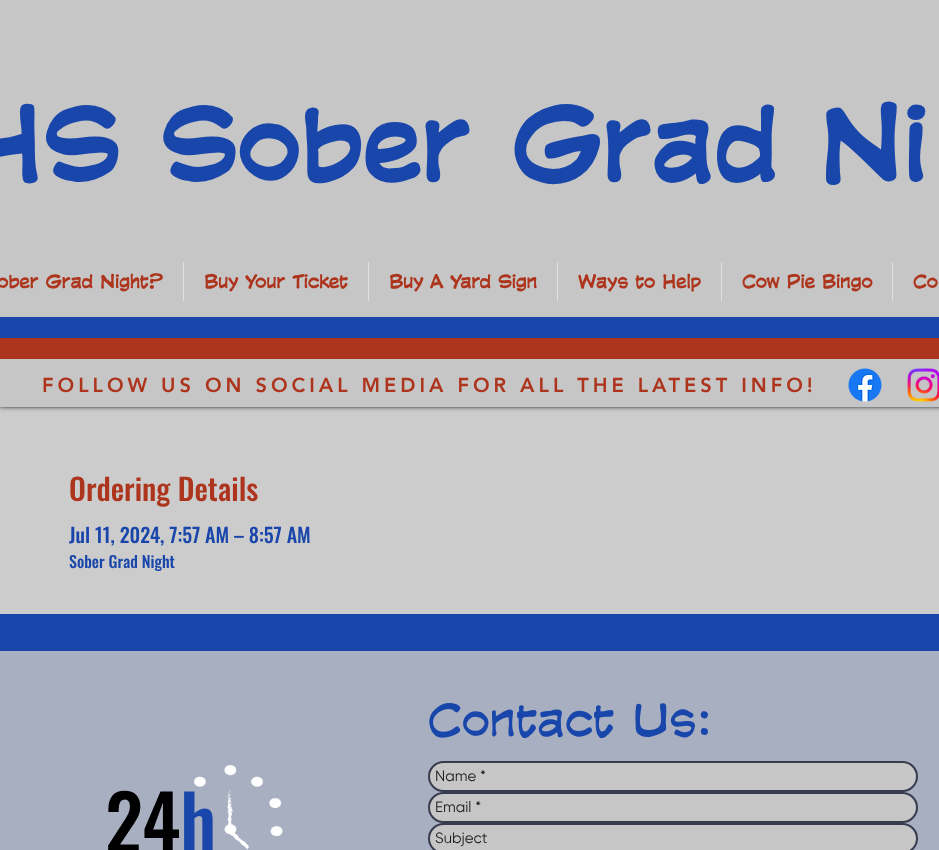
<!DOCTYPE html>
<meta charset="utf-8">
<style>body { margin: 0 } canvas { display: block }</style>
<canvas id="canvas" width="939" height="850"></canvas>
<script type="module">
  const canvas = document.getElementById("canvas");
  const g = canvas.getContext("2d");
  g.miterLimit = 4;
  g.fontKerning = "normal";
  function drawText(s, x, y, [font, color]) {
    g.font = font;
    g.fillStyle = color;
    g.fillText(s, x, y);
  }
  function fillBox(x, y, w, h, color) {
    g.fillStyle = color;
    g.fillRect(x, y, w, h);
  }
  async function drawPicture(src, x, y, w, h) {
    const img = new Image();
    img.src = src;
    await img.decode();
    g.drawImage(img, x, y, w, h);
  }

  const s1 = ["bold 100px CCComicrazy", "#1946AB"];
  const s2 = ["bold 18px CCComicrazy", "#AE351D"];
  const s3 = ["900 20px 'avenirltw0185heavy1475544'", "#AE351D"];
  const s4 = ["500 30px Oswald", "#AE351D"];
  const s5 = ["500 20px Oswald", "#1946AB"];
  const s6 = ["500 16px Oswald", "#1946AB"];
  const s7 = ["45px CCComicrazy", "#1946AB"];
  const s8 = ["500 76px Oswald", "#000000"];
  const s9 = ["500 76px Oswald", "#1946AB"];
  const s10 = ["15px Gilroy", "#202020"];

  fillBox(0, 0, 939, 850, "#1946AB");
  fillBox(0, 407, 939, 1, "#BBBFC9");
  fillBox(0, 408, 939, 206, "#CCCCCC");
  g.fillStyle = "rgba(0, 0, 0, 0.7)";
  g.filter = "blur(2.5px)";
  g.beginPath();
  g.rect(0, 0, 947, 407);
  g.fill();
  g.filter = "none";
  fillBox(0, 0, 939, 407, "#C6C6C6");
  g.letterSpacing = "1px";
  drawText("HS Sober Grad Ni", -36, 181, s1);
  g.letterSpacing = "0px";
  drawText("ober Grad Night?", -3, 288, s2);
  fillBox(183, 262, 1, 39, "#E0E0E0");
  drawText("Buy Your Ticket", 204, 288, s2);
  fillBox(368, 262, 1, 39, "#E0E0E0");
  drawText("Buy A Yard Sign", 389, 288, s2);
  fillBox(557, 262, 1, 39, "#E0E0E0");
  drawText("Ways to Help", 578, 288, s2);
  fillBox(721, 262, 1, 39, "#E0E0E0");
  drawText("Cow Pie Bingo", 742, 288, s2);
  fillBox(892, 262, 1, 39, "#E0E0E0");
  drawText("Co", 913, 288, s2);
  fillBox(0, 317, 939, 21, "#1946AB");
  fillBox(0, 338, 939, 21, "#AE351D");
  g.letterSpacing = "4px";
  drawText("FOLLOW US ON SOCIAL MEDIA FOR ALL THE LATEST INFO!", 42, 392, s3);
  await drawPicture("pic1.png", 848, 368, 34, 34);
  await drawPicture("pic2.png", 907, 368, 32, 34);
  g.letterSpacing = "0px";
  drawText("Ordering Details", 69, 501, s4);
  drawText("Jul 11, 2024, 7:57 AM – 8:57 AM", 69, 543, s5);
  drawText("Sober Grad Night", 69, 568, s6);
  fillBox(0, 651, 939, 199, "#A7AFC1");
  drawText("Contact Us:", 428, 736, s7);
  drawText("24", 105, 853, s8);
  await drawPicture("pic3.png", 194, 765, 89, 85);
  drawText("h", 180, 853, s9);
  g.fillStyle = "#C6C6C6";
  g.beginPath();
  g.roundRect(429, 762, 488, 29, 14.5);
  g.fill();
  g.strokeStyle = "#373B4D";
  g.lineWidth = 2;
  g.stroke();
  drawText("Name *", 435, 781, s10);
  g.fillStyle = "#C6C6C6";
  g.beginPath();
  g.roundRect(429, 793, 488, 29, 14.5);
  g.fill();
  g.stroke();
  drawText("Email *", 435, 812, s10);
  g.fillStyle = "#C6C6C6";
  g.beginPath();
  g.roundRect(429, 824, 488, 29, 14.5);
  g.fill();
  g.stroke();
  drawText("Subject", 435, 843, s10);
</script>
